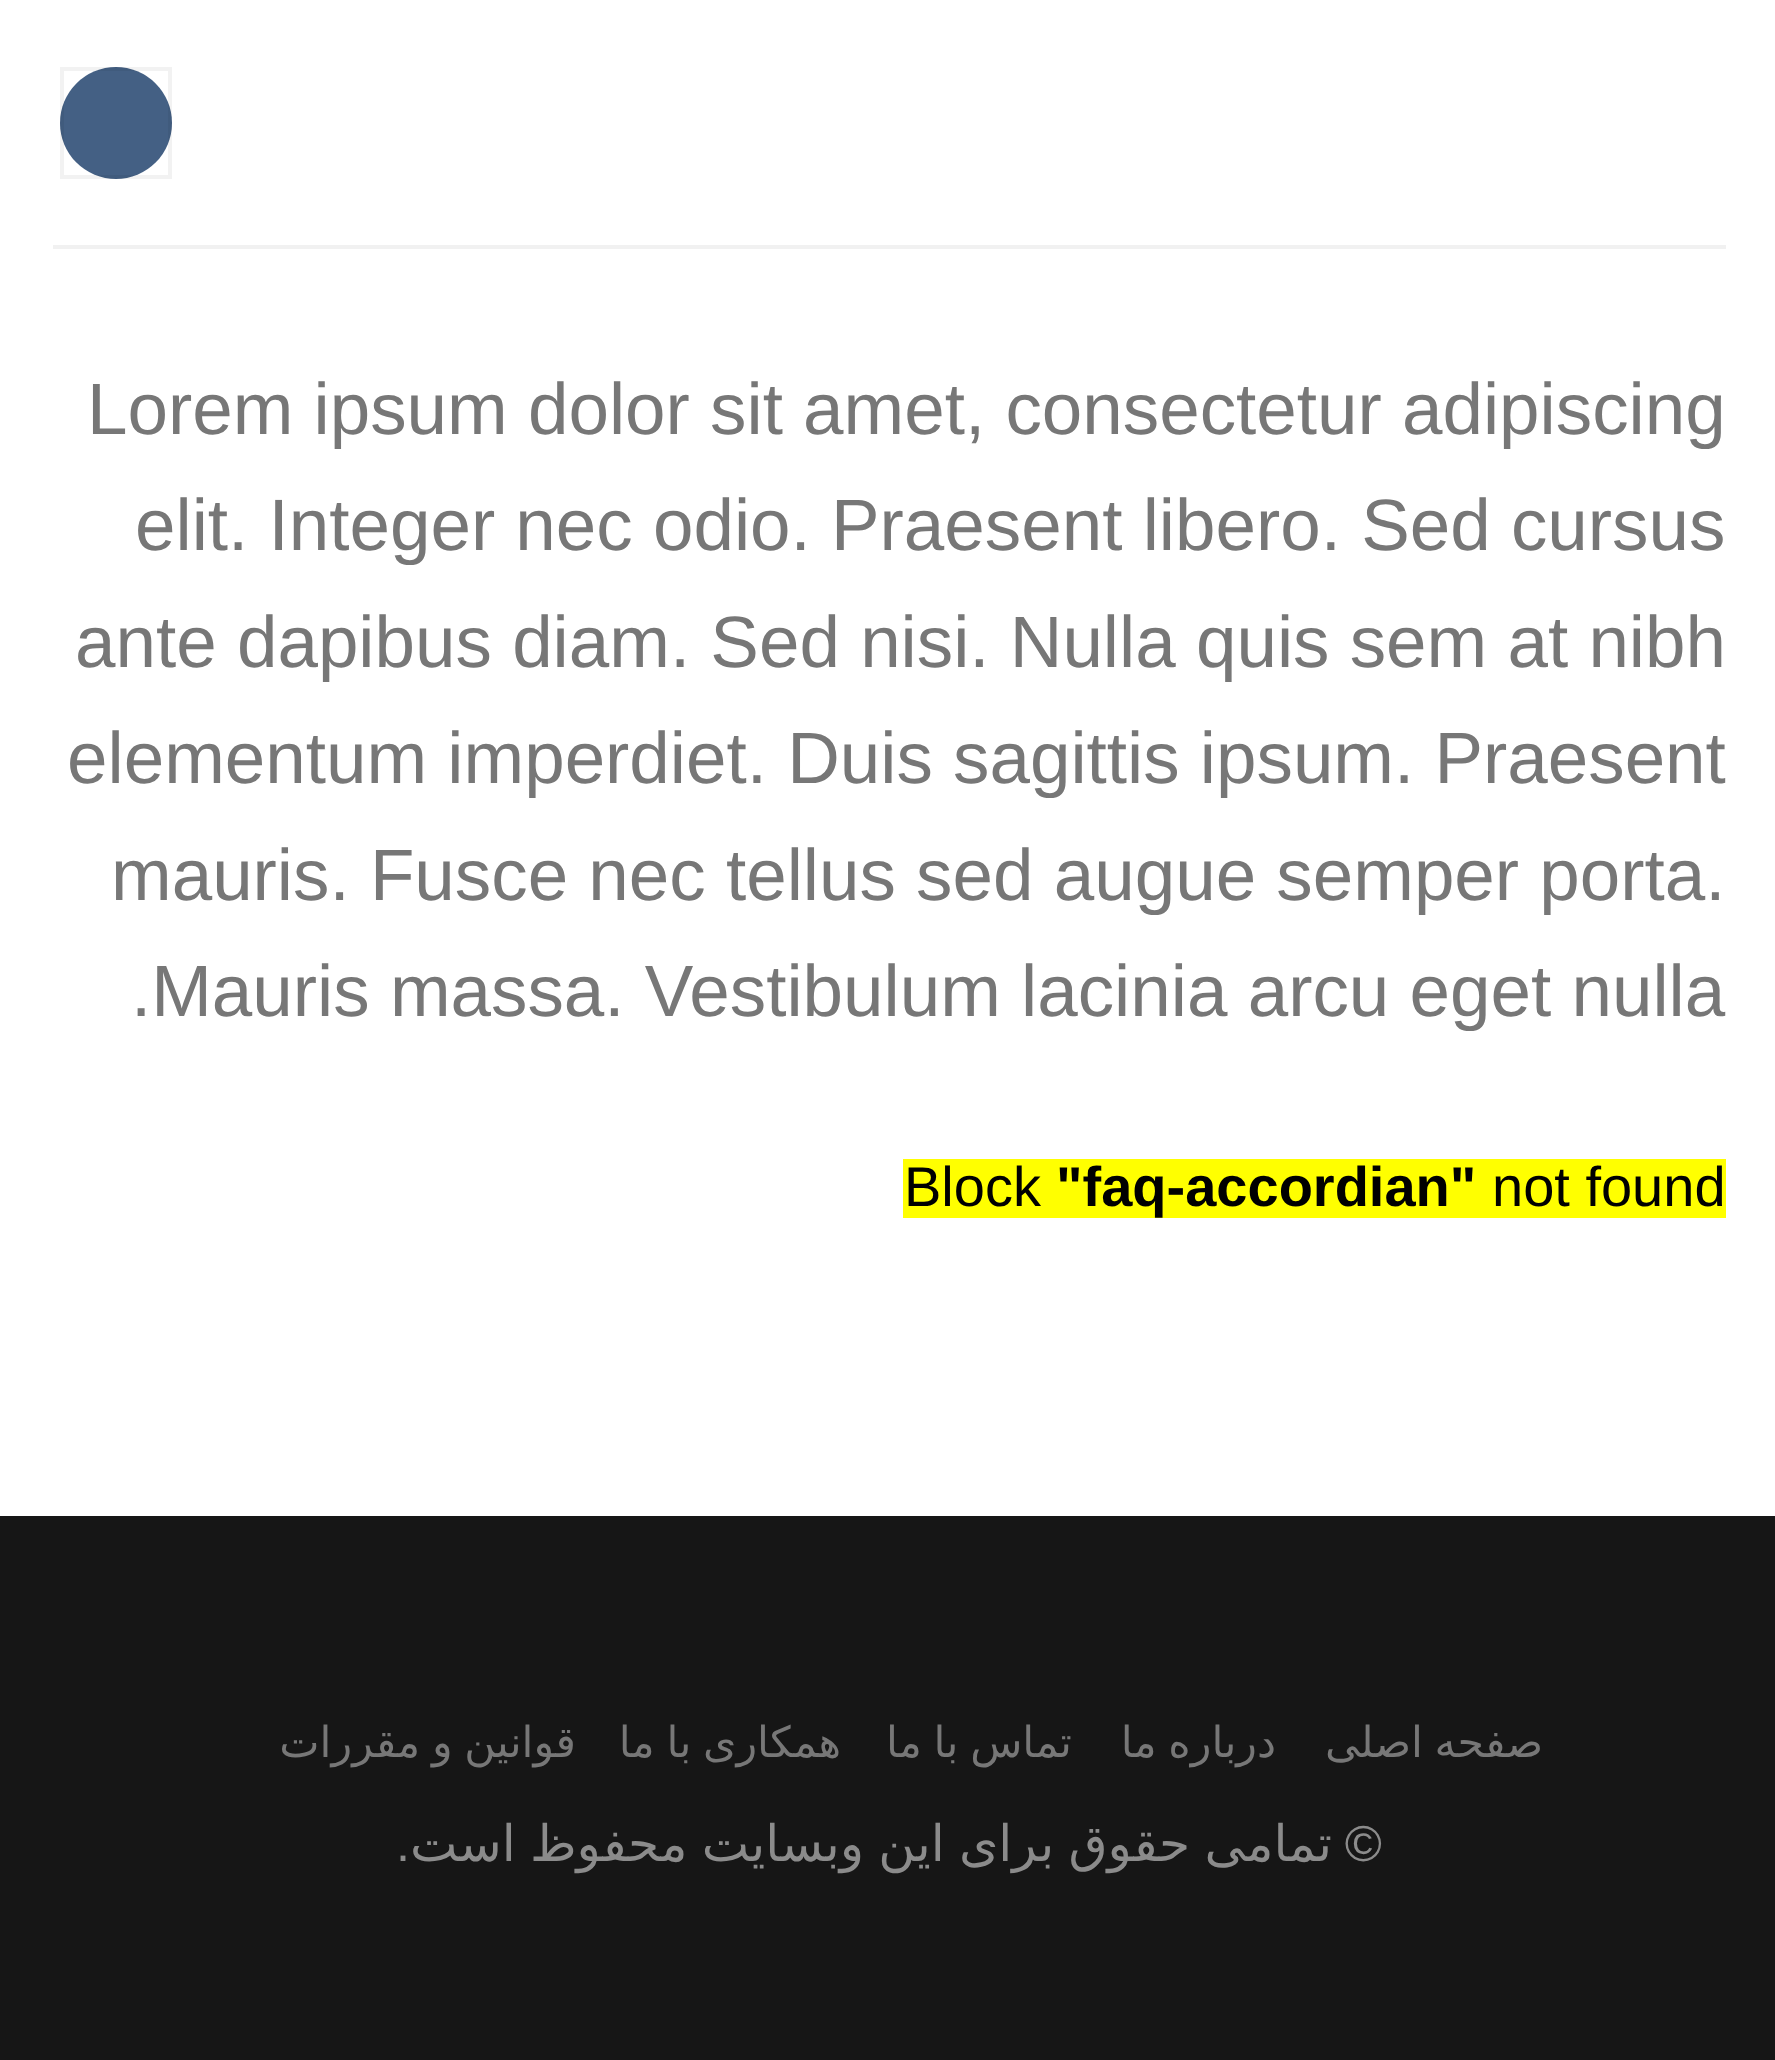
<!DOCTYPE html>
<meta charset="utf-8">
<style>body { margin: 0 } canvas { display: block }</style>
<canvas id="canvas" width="1775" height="2060"></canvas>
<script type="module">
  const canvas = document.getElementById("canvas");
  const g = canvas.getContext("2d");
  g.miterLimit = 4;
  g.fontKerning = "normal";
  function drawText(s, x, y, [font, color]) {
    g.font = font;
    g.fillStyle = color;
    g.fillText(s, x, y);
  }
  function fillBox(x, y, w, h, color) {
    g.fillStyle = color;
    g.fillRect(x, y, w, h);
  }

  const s1 = ["72.8px Liberation Sans", "#777777"];
  const s2 = ["56px Liberation Sans", "#000000"];
  const s3 = ["bold 56px Liberation Sans", "#000000"];
  const s4 = ["42.75px DejaVu Sans", "#777777"];
  const s5 = ["50.4px Liberation Sans", "#8B8B8B"];
  const s6 = ["50.4px DejaVu Sans", "#8B8B8B"];

  fillBox(0, 0, 1775, 2060, "#161616");
  fillBox(0, 0, 1775, 1516, "#FFFFFF");
  g.fillStyle = "#446084";
  g.beginPath();
  g.arc(116, 123, 56, 0, Math.PI * 2);
  g.fill();
  g.strokeStyle = "rgba(0, 0, 0, 0.05)";
  g.lineWidth = 4;
  g.strokeRect(62, 69, 108, 108);
  fillBox(53, 245, 1673, 4, "#F1F1F1");
  drawText("Lorem ipsum dolor sit amet, consectetur adipiscing", 87, 434, s1);
  drawText("elit. Integer nec odio. Praesent libero. Sed cursus", 135, 550, s1);
  drawText("ante dapibus diam. Sed nisi. Nulla quis sem at nibh", 75, 667, s1);
  drawText("elementum imperdiet. Duis sagittis ipsum. Praesent", 67, 783, s1);
  drawText("mauris. Fusce nec tellus sed augue semper porta.", 111, 900, s1);
  drawText(".Mauris massa. Vestibulum lacinia arcu eget nulla", 131, 1016, s1);
  fillBox(903, 1159, 823, 59, "#FFFF00");
  drawText("Block", 904, 1206, s2);
  drawText("\"faq-accordian\"", 1056, 1206, s3);
  drawText("not found", 1492, 1206, s2);
  g.letterSpacing = "2.1px";
  g.wordSpacing = "-4px";
  g.direction = "rtl";
  drawText("قوانین و مقررات", 576, 1757, s4);
  drawText("همکاری با ما", 841, 1757, s4);
  drawText("تماس با ما", 1072, 1757, s4);
  drawText("درباره ما", 1276, 1757, s4);
  drawText("صفحه اصلی", 1543, 1757, s4);
  g.letterSpacing = "0px";
  g.wordSpacing = "0px";
  drawText(".", 410, 1861, s5);
  g.wordSpacing = "-1.75px";
  drawText("تمامی حقوق برای این وبسایت محفوظ است", 1332, 1861, s6);
  g.wordSpacing = "0px";
  drawText("©", 1382, 1861, s5);
</script>
